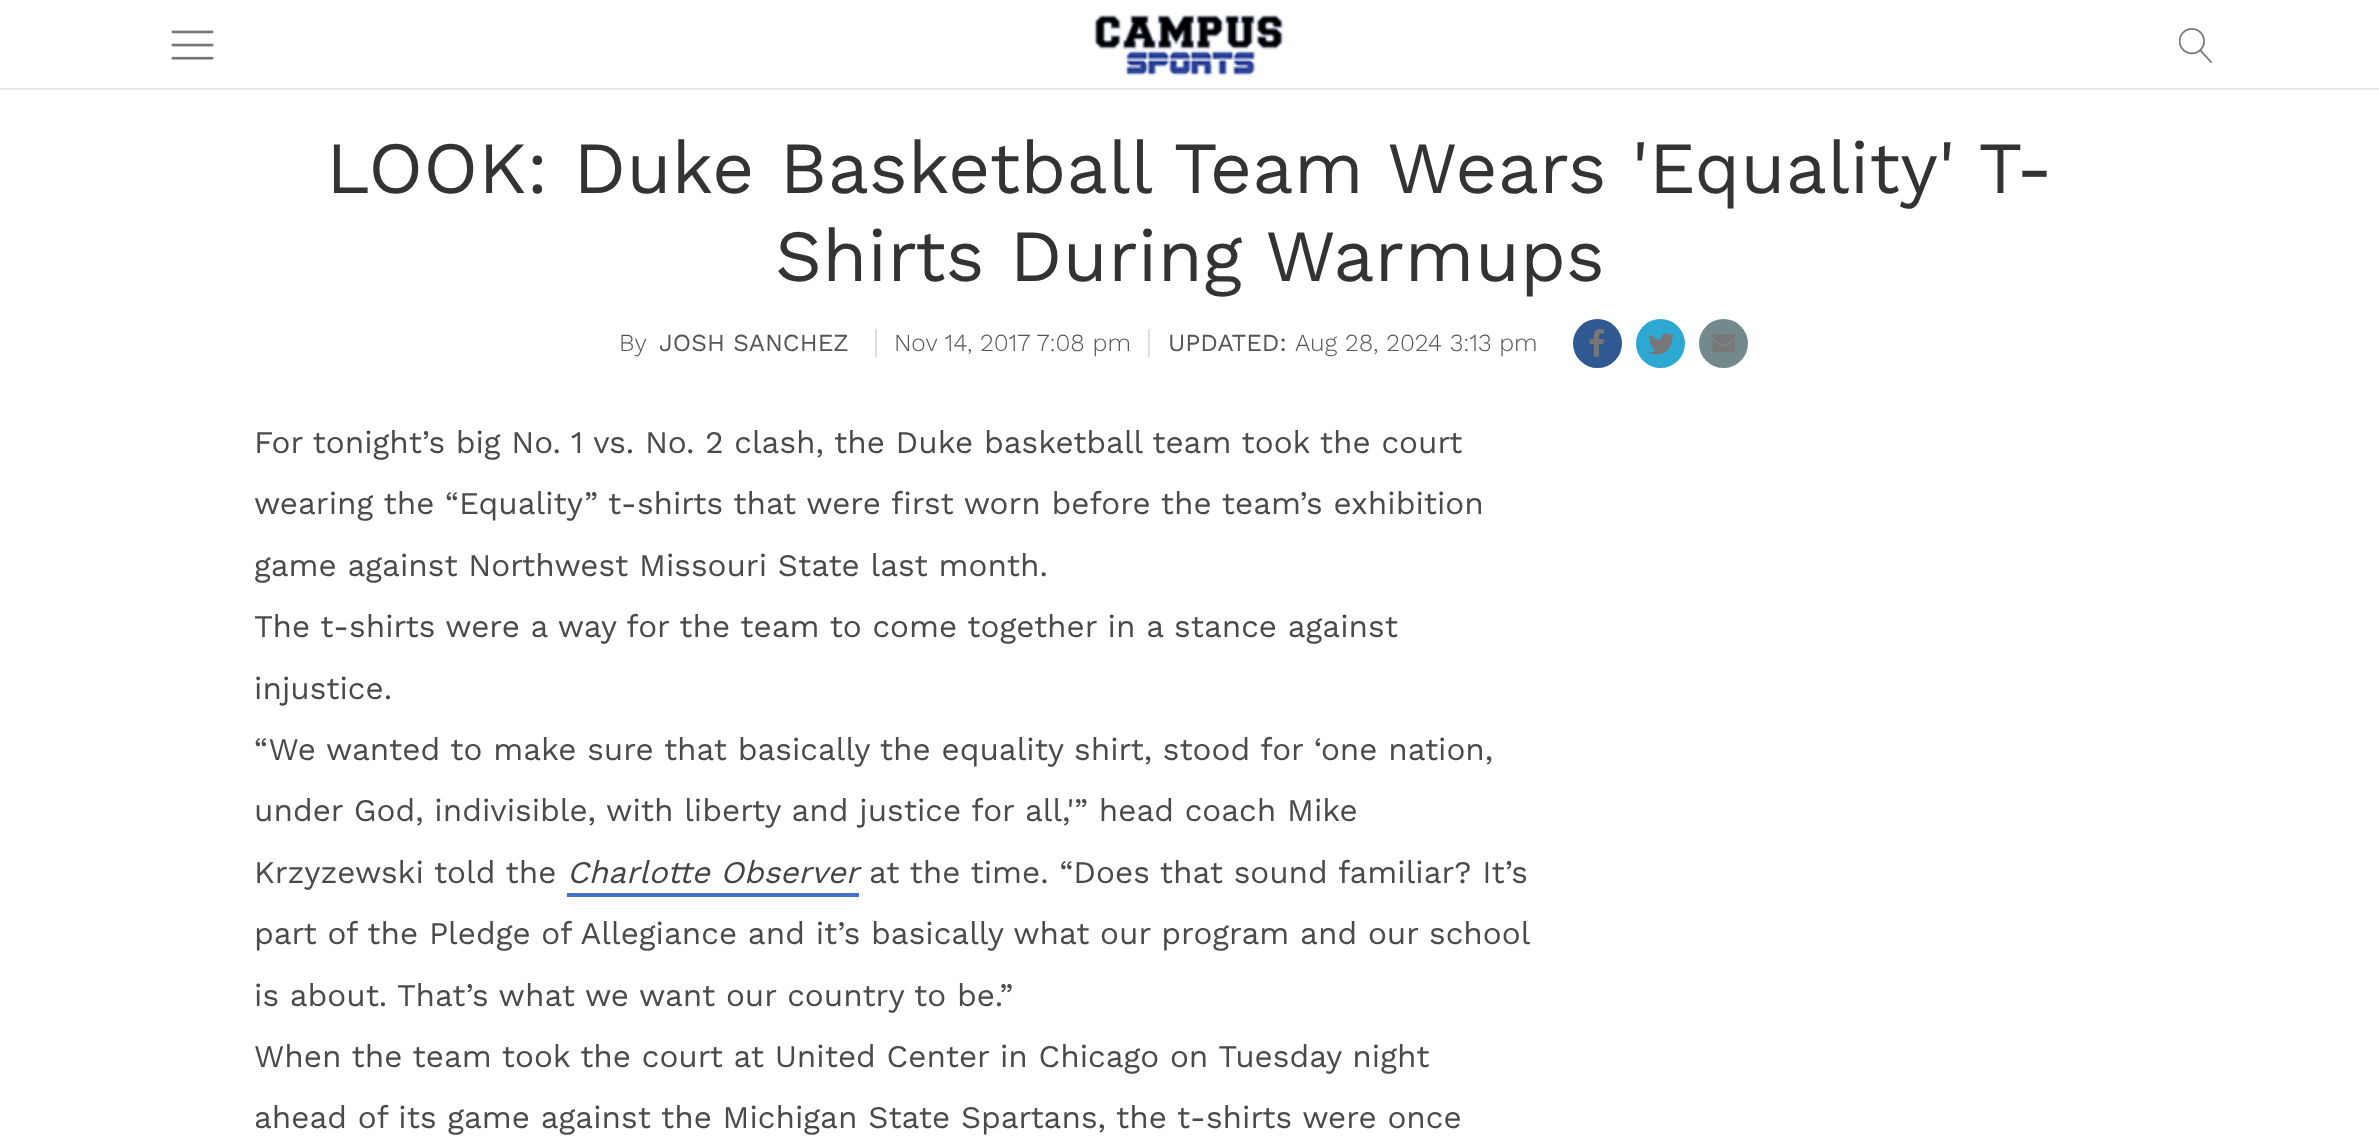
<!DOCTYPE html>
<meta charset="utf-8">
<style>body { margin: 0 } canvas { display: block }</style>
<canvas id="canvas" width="2379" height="1141"></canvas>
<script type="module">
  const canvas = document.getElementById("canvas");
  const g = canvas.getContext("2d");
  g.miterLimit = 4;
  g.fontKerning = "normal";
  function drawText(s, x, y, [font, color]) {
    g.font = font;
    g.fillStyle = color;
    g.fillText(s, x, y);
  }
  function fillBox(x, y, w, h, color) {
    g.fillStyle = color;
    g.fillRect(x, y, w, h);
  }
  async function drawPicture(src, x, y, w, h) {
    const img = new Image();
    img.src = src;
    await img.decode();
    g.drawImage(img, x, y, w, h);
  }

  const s1 = ["73.5px Work Sans", "#333333"];
  const s2 = ["300 24.5px Work Sans", "#555555"];
  const s3 = ["24.5px Work Sans", "#555555"];
  const s4 = ["31.5px Work Sans", "#4A4A4A"];
  const s5 = ["italic 31.5px Work Sans", "#444444"];

  fillBox(0, 0, 2379, 1141, "#FFFFFF");
  fillBox(0, 88, 2379, 2, "#E7E7E7");
  await drawPicture("pic1.png", 171, 30, 43, 30);
  await drawPicture("pic2.png", 1093, 14, 191, 62);
  await drawPicture("pic3.png", 2179, 28, 33, 35);
  drawText("LOOK: Duke Basketball Team Wears 'Equality' T-", 326, 193, s1);
  drawText("Shirts During Warmups", 775, 281, s1);
  drawText("By", 619, 351, s2);
  drawText("JOSH SANCHEZ", 659, 351, s3);
  fillBox(875, 329, 2, 28, "#DEDEDE");
  drawText("Nov 14, 2017 7:08 pm", 894, 351, s2);
  drawText("UPDATED:", 1168, 351, s3);
  fillBox(1148, 329, 2, 28, "#DEDEDE");
  drawText("Aug 28, 2024 3:13 pm", 1295, 351, s2);
  g.fillStyle = "#305891";
  g.beginPath();
  g.arc(1597.5, 343.5, 24.5, 0, Math.PI * 2);
  g.fill();
  await drawPicture("pic4.png", 1589, 329, 15, 28);
  g.fillStyle = "#2CA8D2";
  g.beginPath();
  g.arc(1660.5, 343.5, 24.5, 0, Math.PI * 2);
  g.fill();
  await drawPicture("pic5.png", 1648, 333, 27, 22);
  g.fillStyle = "#738A8D";
  g.beginPath();
  g.arc(1723.5, 343.5, 24.5, 0, Math.PI * 2);
  g.fill();
  await drawPicture("pic6.png", 1712, 334, 23, 18);
  drawText("For tonight’s big No. 1 vs. No. 2 clash, the Duke basketball team took the court", 254, 453, s4);
  drawText("wearing the “Equality” t-shirts that were first worn before the team’s exhibition", 254, 514, s4);
  drawText("game against Northwest Missouri State last month.", 254, 576, s4);
  drawText("The t-shirts were a way for the team to come together in a stance against", 254, 637, s4);
  drawText("injustice.", 254, 699, s4);
  drawText("“We wanted to make sure that basically the equality shirt, stood for ‘one nation,", 254, 760, s4);
  drawText("under God, indivisible, with liberty and justice for all,'” head coach Mike", 254, 821, s4);
  drawText("Krzyzewski told the", 254, 883, s4);
  drawText("Charlotte Observer", 567, 883, s5);
  fillBox(567, 893, 292, 4, "#4371CF");
  drawText("at the time. “Does that sound familiar? It’s", 869, 883, s4);
  drawText("part of the Pledge of Allegiance and it’s basically what our program and our school", 254, 944, s4);
  drawText("is about. That’s what we want our country to be.”", 254, 1006, s4);
  drawText("When the team took the court at United Center in Chicago on Tuesday night", 254, 1067, s4);
  drawText("ahead of its game against the Michigan State Spartans, the t-shirts were once", 254, 1128, s4);
</script>
